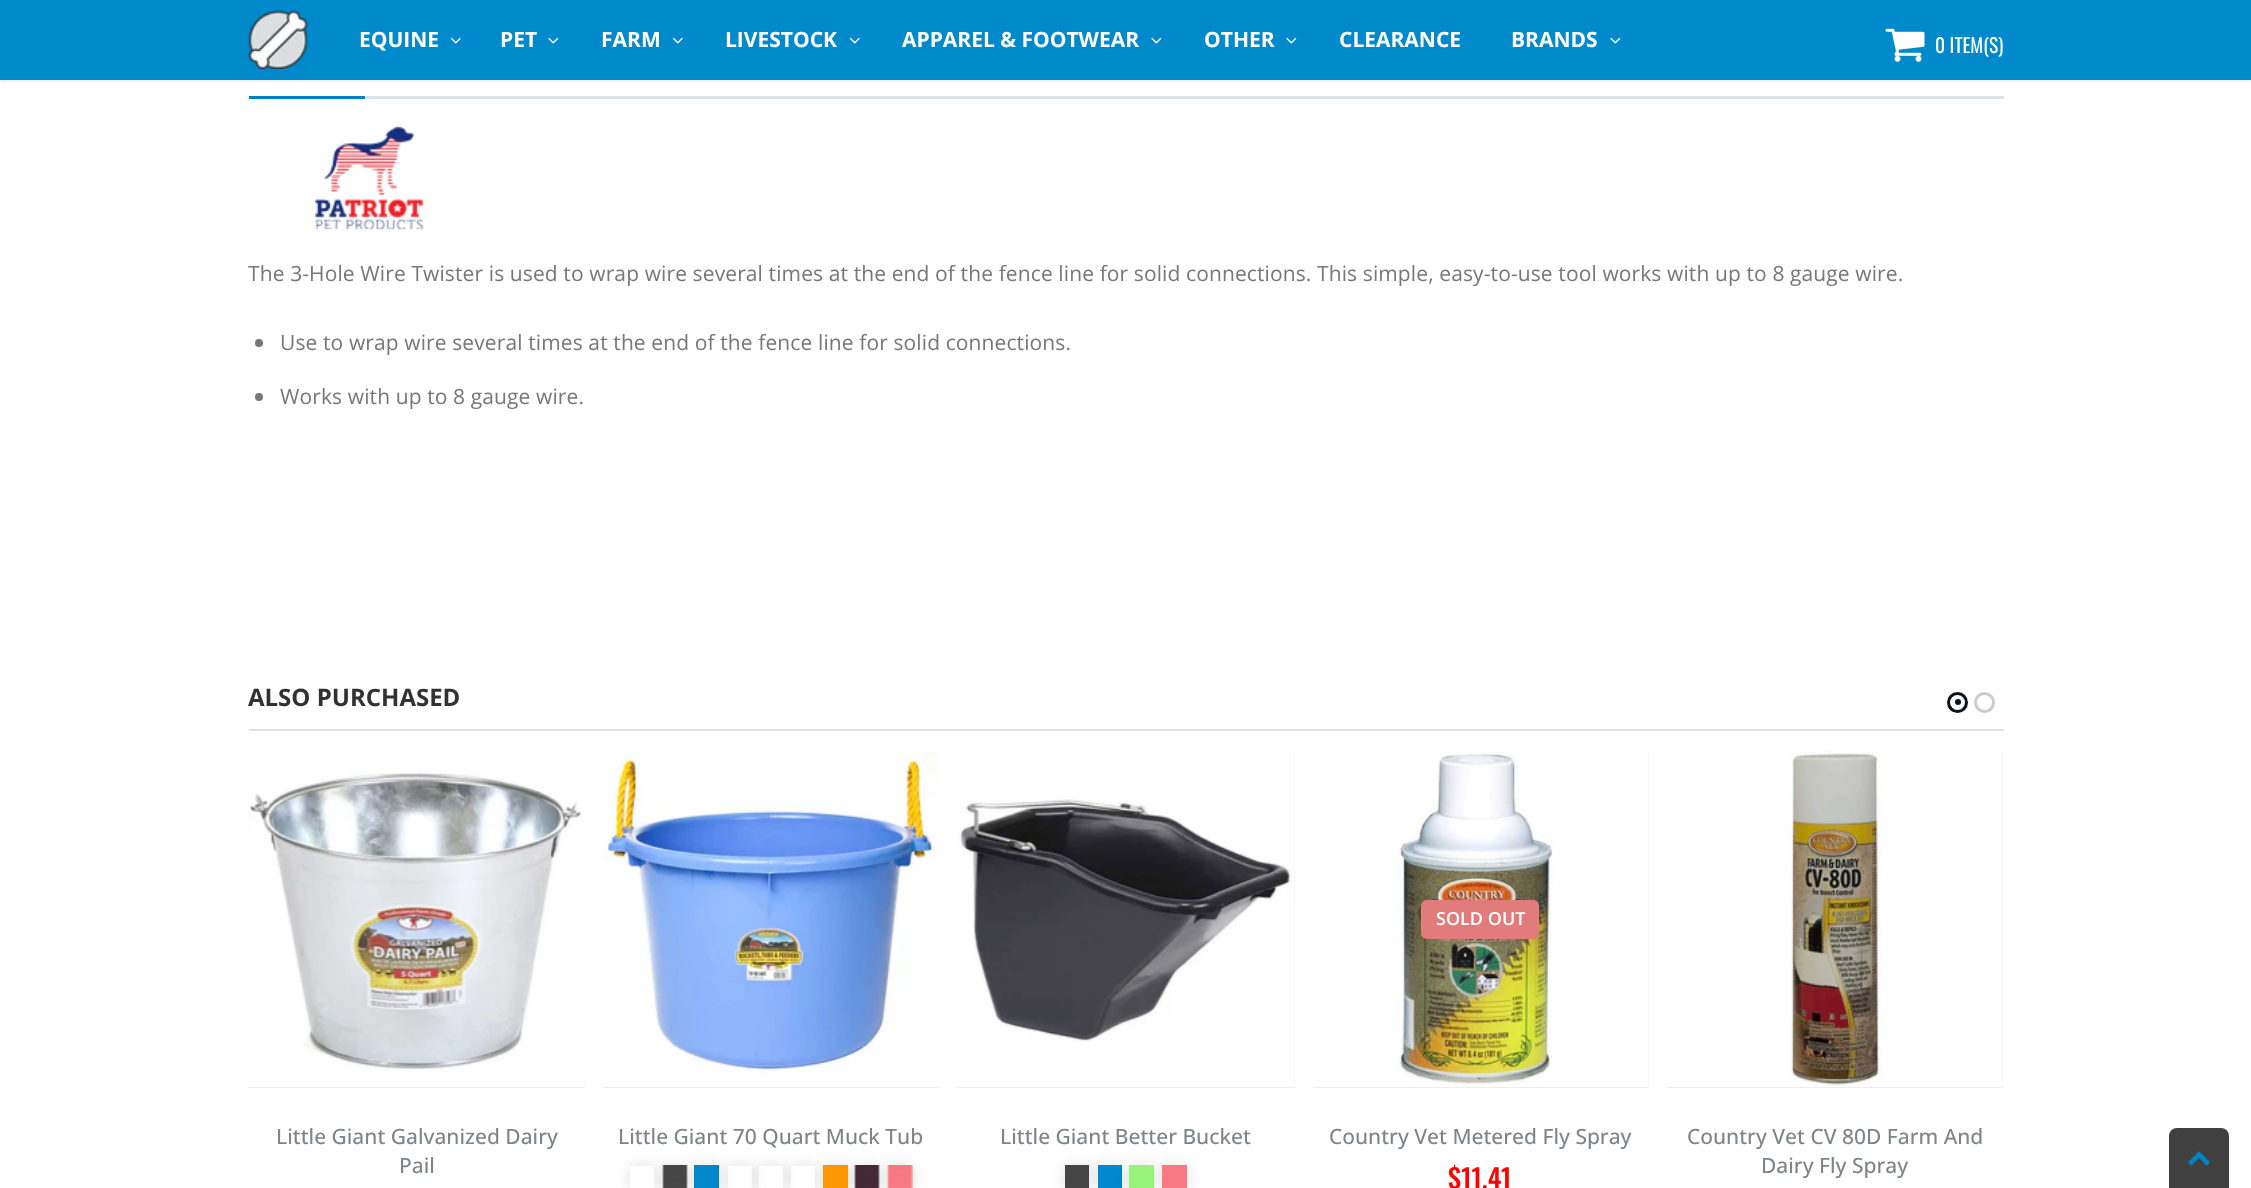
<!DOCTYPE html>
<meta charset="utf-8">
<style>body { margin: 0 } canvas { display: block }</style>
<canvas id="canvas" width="2251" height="1188"></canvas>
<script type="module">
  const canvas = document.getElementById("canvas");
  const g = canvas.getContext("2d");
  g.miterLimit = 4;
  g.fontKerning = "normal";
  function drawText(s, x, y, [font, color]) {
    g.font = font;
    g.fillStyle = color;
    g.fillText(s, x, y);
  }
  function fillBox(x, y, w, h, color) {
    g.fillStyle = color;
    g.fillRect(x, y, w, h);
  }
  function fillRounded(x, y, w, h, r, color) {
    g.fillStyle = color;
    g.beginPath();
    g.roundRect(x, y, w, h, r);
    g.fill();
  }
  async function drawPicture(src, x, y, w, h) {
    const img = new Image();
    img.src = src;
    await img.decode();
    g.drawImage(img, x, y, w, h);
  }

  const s1 = ["bold 21px Open Sans", "#FFFFFF"];
  const s2 = ["19.5px Oswald", "#FFFFFF"];
  const s3 = ["21px Open Sans", "#777777"];
  const s4 = ["bold 24px Open Sans", "#313131"];
  const s5 = ["500 21px Open Sans", "#7B858A"];
  const s6 = ["600 18px Open Sans", "#FFFFFF"];
  const s7 = ["500 27px Oswald", "#FF0000"];

  fillBox(0, 0, 2251, 1188, "#FFFFFF");
  g.fillStyle = "rgba(0, 0, 0, 0.1)";
  g.filter = "blur(1.5px)";
  g.beginPath();
  g.rect(0, 2, 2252, 79);
  g.fill();
  g.filter = "none";
  fillBox(0, 0, 2251, 80, "#008ACC");
  await drawPicture("pic1.png", 248, 10, 60, 59);
  drawText("EQUINE", 359, 47, s1);
  await drawPicture("pic2.png", 450, 37, 11, 7);
  drawText("PET", 500, 47, s1);
  await drawPicture("pic3.png", 548, 37, 11, 7);
  drawText("FARM", 601, 47, s1);
  await drawPicture("pic2.png", 672, 37, 11, 7);
  drawText("LIVESTOCK", 725, 47, s1);
  await drawPicture("pic2.png", 849, 37, 11, 7);
  drawText("APPAREL & FOOTWEAR", 902, 47, s1);
  await drawPicture("pic3.png", 1151, 37, 11, 7);
  drawText("OTHER", 1204, 47, s1);
  await drawPicture("pic3.png", 1286, 37, 11, 7);
  drawText("CLEARANCE", 1339, 47, s1);
  drawText("BRANDS", 1511, 47, s1);
  await drawPicture("pic3.png", 1610, 37, 11, 7);
  await drawPicture("pic4.png", 1885, 28, 40, 34);
  drawText("0 ITEM(S)", 1935, 53, s2);
  fillBox(365, 96, 1639, 3, "#DAE2E6");
  fillBox(249, 96, 116, 3, "#0083C1");
  await drawPicture("pic5.png", 314, 126, 110, 104);
  g.letterSpacing = "0.11px";
  drawText("The 3-Hole Wire Twister is used to wrap wire several times at the end of the fence line for solid connections. This simple, easy-to-use tool works with up to 8 gauge wire.", 248, 281, s3);
  g.beginPath();
  g.arc(259, 343, 4, 0, Math.PI * 2);
  g.fill();
  drawText("Use to wrap wire several times at the end of the fence line for solid connections.", 280, 350, s3);
  g.beginPath();
  g.arc(259, 397, 4, 0, Math.PI * 2);
  g.fill();
  drawText("Works with up to 8 gauge wire.", 280, 404, s3);
  fillBox(249, 729, 1755, 2, "#E1E1E1");
  g.letterSpacing = "0px";
  drawText("ALSO PURCHASED", 248, 706, s4);
  g.beginPath();
  g.arc(1957.5, 702.5, 9, 0, Math.PI * 2);
  g.strokeStyle = "#05131C";
  g.lineWidth = 3;
  g.stroke();
  g.fillStyle = "#05131C";
  g.beginPath();
  g.arc(1958, 702, 3, 0, Math.PI * 2);
  g.fill();
  g.beginPath();
  g.arc(1984.5, 702.5, 9, 0, Math.PI * 2);
  g.strokeStyle = "#CCCCCC";
  g.stroke();
  fillBox(248, 752, 337, 336, "#EEEEEE");
  await drawPicture("pic6.png", 248, 752, 337, 335);
  drawText("Little Giant Galvanized Dairy", 276, 1144, s5);
  drawText("Pail", 399, 1173, s5);
  fillBox(603, 1087, 336, 1, "#EEEEEE");
  await drawPicture("pic7.png", 603, 751, 336, 336);
  drawText("Little Giant 70 Quart Muck Tub", 618, 1144, s5);
  g.save();
  g.beginPath();
  g.moveTo(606, 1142);
  g.lineTo(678, 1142);
  g.lineTo(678, 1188);
  g.lineTo(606, 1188);
  g.closePath();
  g.moveTo(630, 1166);
  g.lineTo(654, 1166);
  g.lineTo(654, 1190);
  g.lineTo(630, 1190);
  g.closePath();
  g.clip("evenodd");
  g.fillStyle = "rgba(0, 0, 0, 0.13)";
  g.filter = "blur(7.5px)";
  g.beginPath();
  g.rect(630, 1166, 24, 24);
  g.fill();
  g.filter = "none";
  g.restore();
  g.fillStyle = "rgba(0, 0, 0, 0.13)";
  g.filter = "blur(7.5px)";
  g.beginPath();
  g.rect(663, 1166, 24, 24);
  g.fill();
  g.filter = "none";
  await drawPicture("pic8.png", 662, 1165, 26, 23);
  g.filter = "blur(7.5px)";
  g.beginPath();
  g.rect(695, 1166, 24, 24);
  g.fill();
  g.filter = "none";
  fillBox(694, 1165, 25, 23, "#0187CB");
  g.save();
  g.beginPath();
  g.moveTo(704, 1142);
  g.lineTo(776, 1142);
  g.lineTo(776, 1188);
  g.lineTo(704, 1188);
  g.closePath();
  g.moveTo(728, 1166);
  g.lineTo(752, 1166);
  g.lineTo(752, 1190);
  g.lineTo(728, 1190);
  g.closePath();
  g.clip("evenodd");
  g.fillStyle = "rgba(0, 0, 0, 0.13)";
  g.filter = "blur(7.5px)";
  g.beginPath();
  g.rect(728, 1166, 24, 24);
  g.fill();
  g.filter = "none";
  g.restore();
  g.save();
  g.beginPath();
  g.moveTo(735, 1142);
  g.lineTo(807, 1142);
  g.lineTo(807, 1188);
  g.lineTo(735, 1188);
  g.closePath();
  g.moveTo(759, 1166);
  g.lineTo(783, 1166);
  g.lineTo(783, 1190);
  g.lineTo(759, 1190);
  g.closePath();
  g.clip("evenodd");
  g.fillStyle = "rgba(0, 0, 0, 0.13)";
  g.filter = "blur(7.5px)";
  g.beginPath();
  g.rect(759, 1166, 24, 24);
  g.fill();
  g.filter = "none";
  g.restore();
  g.save();
  g.beginPath();
  g.moveTo(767, 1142);
  g.lineTo(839, 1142);
  g.lineTo(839, 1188);
  g.lineTo(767, 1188);
  g.closePath();
  g.moveTo(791, 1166);
  g.lineTo(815, 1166);
  g.lineTo(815, 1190);
  g.lineTo(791, 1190);
  g.closePath();
  g.clip("evenodd");
  g.fillStyle = "rgba(0, 0, 0, 0.13)";
  g.filter = "blur(7.5px)";
  g.beginPath();
  g.rect(791, 1166, 24, 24);
  g.fill();
  g.filter = "none";
  g.restore();
  g.fillStyle = "rgba(0, 0, 0, 0.13)";
  g.filter = "blur(7.5px)";
  g.beginPath();
  g.rect(824, 1166, 24, 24);
  g.fill();
  g.filter = "none";
  fillBox(823, 1165, 25, 23, "#FD9804");
  g.fillStyle = "rgba(0, 0, 0, 0.13)";
  g.filter = "blur(7.5px)";
  g.beginPath();
  g.rect(855, 1166, 24, 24);
  g.fill();
  g.filter = "none";
  await drawPicture("pic9.png", 854, 1165, 26, 23);
  g.filter = "blur(7.5px)";
  g.beginPath();
  g.rect(888, 1166, 24, 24);
  g.fill();
  g.filter = "none";
  await drawPicture("pic10.png", 887, 1165, 26, 23);
  fillBox(957, 752, 338, 336, "#EEEEEE");
  await drawPicture("pic11.png", 957, 752, 338, 335);
  drawText("Little Giant Better Bucket", 1000, 1144, s5);
  g.fillStyle = "rgba(0, 0, 0, 0.13)";
  g.filter = "blur(7.5px)";
  g.beginPath();
  g.rect(1065, 1166, 24, 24);
  g.fill();
  g.filter = "none";
  fillBox(1065, 1165, 24, 23, "#464646");
  g.fillStyle = "rgba(0, 0, 0, 0.13)";
  g.filter = "blur(7.5px)";
  g.beginPath();
  g.rect(1098, 1166, 24, 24);
  g.fill();
  g.filter = "none";
  fillBox(1098, 1165, 24, 23, "#0187CB");
  g.fillStyle = "rgba(0, 0, 0, 0.13)";
  g.filter = "blur(7.5px)";
  g.beginPath();
  g.rect(1130, 1166, 24, 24);
  g.fill();
  g.filter = "none";
  fillBox(1129, 1165, 25, 23, "#98F379");
  g.fillStyle = "rgba(0, 0, 0, 0.13)";
  g.filter = "blur(7.5px)";
  g.beginPath();
  g.rect(1163, 1166, 24, 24);
  g.fill();
  g.filter = "none";
  fillBox(1162, 1165, 25, 23, "#F97982");
  fillBox(1313, 752, 336, 336, "#EEEEEE");
  await drawPicture("pic12.png", 1313, 751, 336, 336);
  fillRounded(1421, 900, 118, 39, 6, "#E27C7C");
  drawText("SOLD OUT", 1436, 925, s6);
  drawText("Country Vet Metered Fly Spray", 1329, 1144, s5);
  drawText("$11.41", 1448, 1189, s7);
  fillBox(1667, 752, 336, 336, "#EEEEEE");
  await drawPicture("pic13.png", 1667, 751, 336, 336);
  drawText("Country Vet CV 80D Farm And", 1687, 1144, s5);
  drawText("Dairy Fly Spray", 1761, 1173, s5);
  g.fillStyle = "#404040";
  g.beginPath();
  g.roundRect(2169, 1128, 60, 60, [8, 8, 0, 0]);
  g.fill();
  await drawPicture("pic14.png", 2188, 1151, 22, 15);
</script>
